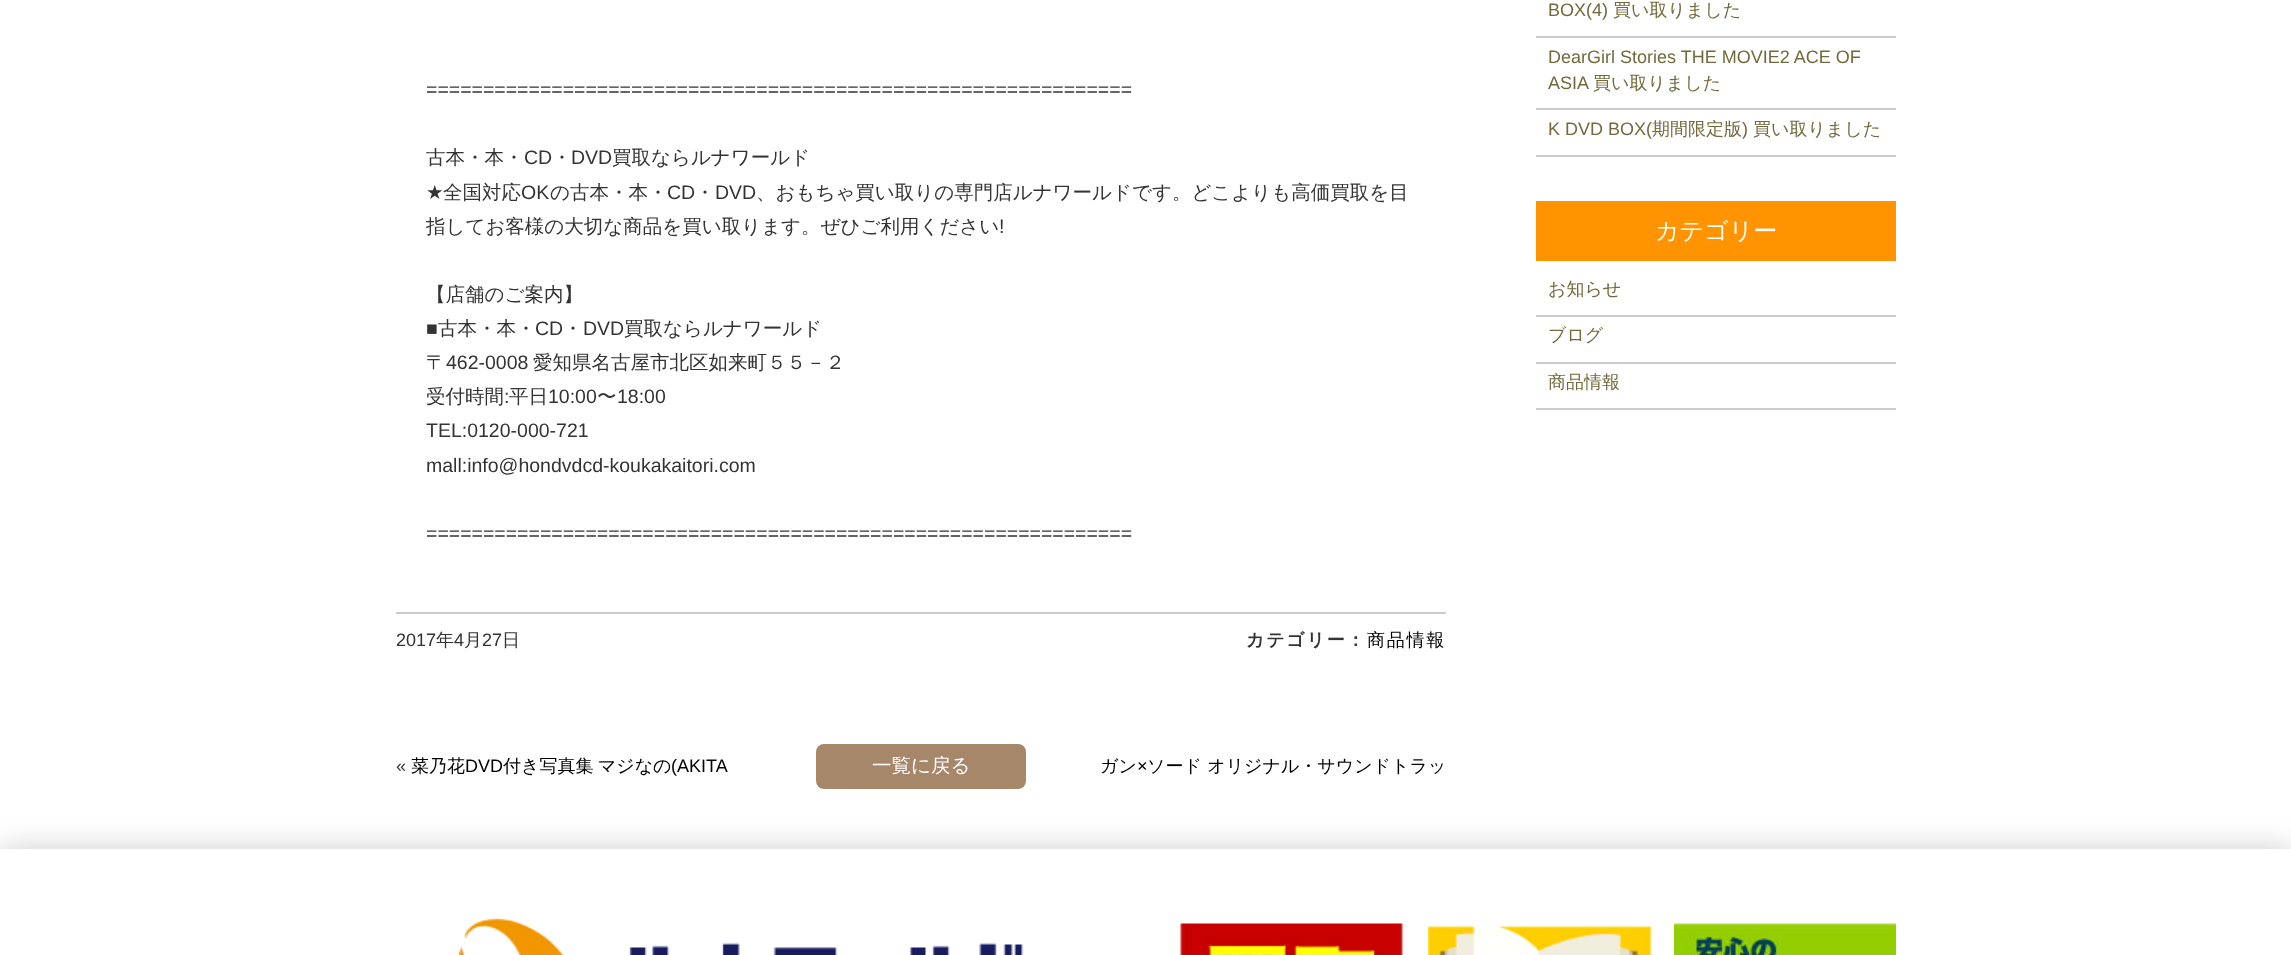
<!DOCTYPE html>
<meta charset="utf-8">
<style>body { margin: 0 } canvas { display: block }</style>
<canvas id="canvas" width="2291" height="955"></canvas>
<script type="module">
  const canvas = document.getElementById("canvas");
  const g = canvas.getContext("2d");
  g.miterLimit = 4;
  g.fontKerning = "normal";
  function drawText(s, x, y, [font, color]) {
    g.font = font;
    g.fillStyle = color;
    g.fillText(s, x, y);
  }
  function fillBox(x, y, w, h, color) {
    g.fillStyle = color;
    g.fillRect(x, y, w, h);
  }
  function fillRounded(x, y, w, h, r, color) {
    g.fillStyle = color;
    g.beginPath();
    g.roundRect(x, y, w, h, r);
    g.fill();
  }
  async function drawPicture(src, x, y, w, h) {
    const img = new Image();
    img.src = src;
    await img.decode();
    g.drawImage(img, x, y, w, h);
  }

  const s1 = ["19.5px Liberation Sans", "#333333"];
  const s2 = ["500 19.5px WenQuanYi Zen Hei", "#333333"];
  const s3 = ["19.5px DejaVu Sans", "#333333"];
  const s4 = ["18px Liberation Sans", "#333333"];
  const s5 = ["500 18px WenQuanYi Zen Hei", "#333333"];
  const s6 = ["bold 18px WenQuanYi Zen Hei", "#333333"];
  const s7 = ["500 18px WenQuanYi Zen Hei", "#000000"];
  const s8 = ["18px Liberation Sans", "#000000"];
  const s9 = ["500 19.5px WenQuanYi Zen Hei", "#FFFFFF"];
  const s10 = ["18px Liberation Sans", "#726A3D"];
  const s11 = ["500 18px WenQuanYi Zen Hei", "#726A3D"];
  const s12 = ["500 24px WenQuanYi Zen Hei", "#FFFFFF"];

  fillBox(0, 0, 2291, 955, "#FFFFFF");
  fillBox(396, 612, 1050, 2, "#CCCCCC");
  drawText("==============================================================", 426, 96, s1);
  drawText("古本・本・", 426, 164, s2);
  drawText("CD", 524, 164, s1);
  drawText("・", 552, 164, s2);
  drawText("DVD", 571, 164, s1);
  drawText("買取ならルナワールド", 612, 164, s2);
  drawText("★", 426, 199, s3);
  drawText("全国対応", 443, 199, s2);
  drawText("OK", 521, 199, s1);
  drawText("の古本・本・", 550, 199, s2);
  drawText("CD", 667, 199, s1);
  drawText("・", 695, 199, s2);
  drawText("DVD", 715, 199, s1);
  drawText("、おもちゃ買い取りの専門店ルナワールドです。どこよりも高価買取を目", 756, 199, s2);
  drawText("指してお客様の大切な商品を買い取ります。ぜひご利用ください", 426, 233, s2);
  drawText("!", 999, 233, s1);
  drawText("【店舗のご案内】", 426, 301, s2);
  drawText("■", 426, 335, s1);
  drawText("古本・本・", 438, 335, s2);
  drawText("CD", 535, 335, s1);
  drawText("・", 563, 335, s2);
  drawText("DVD", 583, 335, s1);
  drawText("買取ならルナワールド", 624, 335, s2);
  drawText("〒", 426, 369, s2);
  drawText("462-0008", 446, 369, s1);
  drawText("愛知県名古屋市北区如来町５５－２", 533, 369, s2);
  drawText("受付時間", 426, 403, s2);
  drawText(":", 504, 403, s1);
  drawText("平日", 509, 403, s2);
  drawText("10:00", 548, 403, s1);
  drawText("〜", 597, 403, s2);
  drawText("18:00", 617, 403, s1);
  drawText("TEL:0120-000-721", 426, 437, s1);
  drawText("mall:info@hondvdcd-koukakaitori.com", 426, 472, s1);
  drawText("==============================================================", 426, 540, s1);
  drawText("2017", 396, 646, s4);
  drawText("年", 436, 646, s5);
  drawText("4", 454, 646, s4);
  drawText("月", 464, 646, s5);
  drawText("27", 482, 646, s4);
  drawText("日", 502, 646, s5);
  g.letterSpacing = "1.75px";
  drawText("カテゴリー：", 1246, 646, s6);
  drawText("商品情報", 1367, 646, s7);
  g.letterSpacing = "0px";
  drawText("«", 396, 772, s4);
  drawText("菜乃花", 411, 772, s7);
  drawText("DVD", 465, 772, s8);
  g.wordSpacing = "-1px";
  drawText("付き写真集 マジなの", 503, 772, s7);
  g.wordSpacing = "0px";
  drawText("(AKITA", 671, 772, s8);
  fillRounded(816, 744, 210, 45, 8, "#A6876A");
  drawText("一覧に戻る", 872, 772, s9);
  drawText("ガン", 1100, 772, s7);
  drawText("×", 1137, 772, s8);
  drawText("ソード オリジナル・サウンドトラッ", 1147, 772, s7);
  fillBox(1536, 36, 360, 2, "#CCCCCC");
  drawText("BOX(4)", 1548, 16, s10);
  drawText("買い取りました", 1613, 16, s11);
  fillBox(1536, 108, 360, 2, "#CCCCCC");
  drawText("DearGirl Stories THE MOVIE2 ACE OF", 1548, 63, s10);
  drawText("ASIA", 1548, 89, s10);
  drawText("買い取りました", 1593, 89, s11);
  fillBox(1536, 155, 360, 2, "#CCCCCC");
  drawText("K DVD BOX(", 1548, 135, s10);
  drawText("期間限定版", 1652, 135, s11);
  drawText(")", 1742, 135, s10);
  drawText("買い取りました", 1753, 135, s11);
  fillBox(1536, 201, 360, 60, "#FF9300");
  drawText("カテゴリー", 1655, 239, s12);
  fillBox(1536, 315, 360, 2, "#CCCCCC");
  drawText("お知らせ", 1548, 295, s11);
  fillBox(1536, 362, 360, 2, "#CCCCCC");
  drawText("ブログ", 1548, 341, s11);
  fillBox(1536, 408, 360, 2, "#CCCCCC");
  drawText("商品情報", 1548, 388, s11);
  g.save();
  g.beginPath();
  g.rect(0, 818, 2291, 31);
  g.clip();
  g.fillStyle = "#CCCCCC";
  g.filter = "blur(15px)";
  g.beginPath();
  g.rect(0, 849, 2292, 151);
  g.fill();
  g.filter = "none";
  g.restore();
  await drawPicture("pic1.png", 458, 918, 566, 37);
  await drawPicture("pic2.png", 1180, 923, 223, 32);
  await drawPicture("pic3.png", 1428, 925, 224, 30);
  await drawPicture("pic4.png", 1674, 923, 222, 32);
</script>
